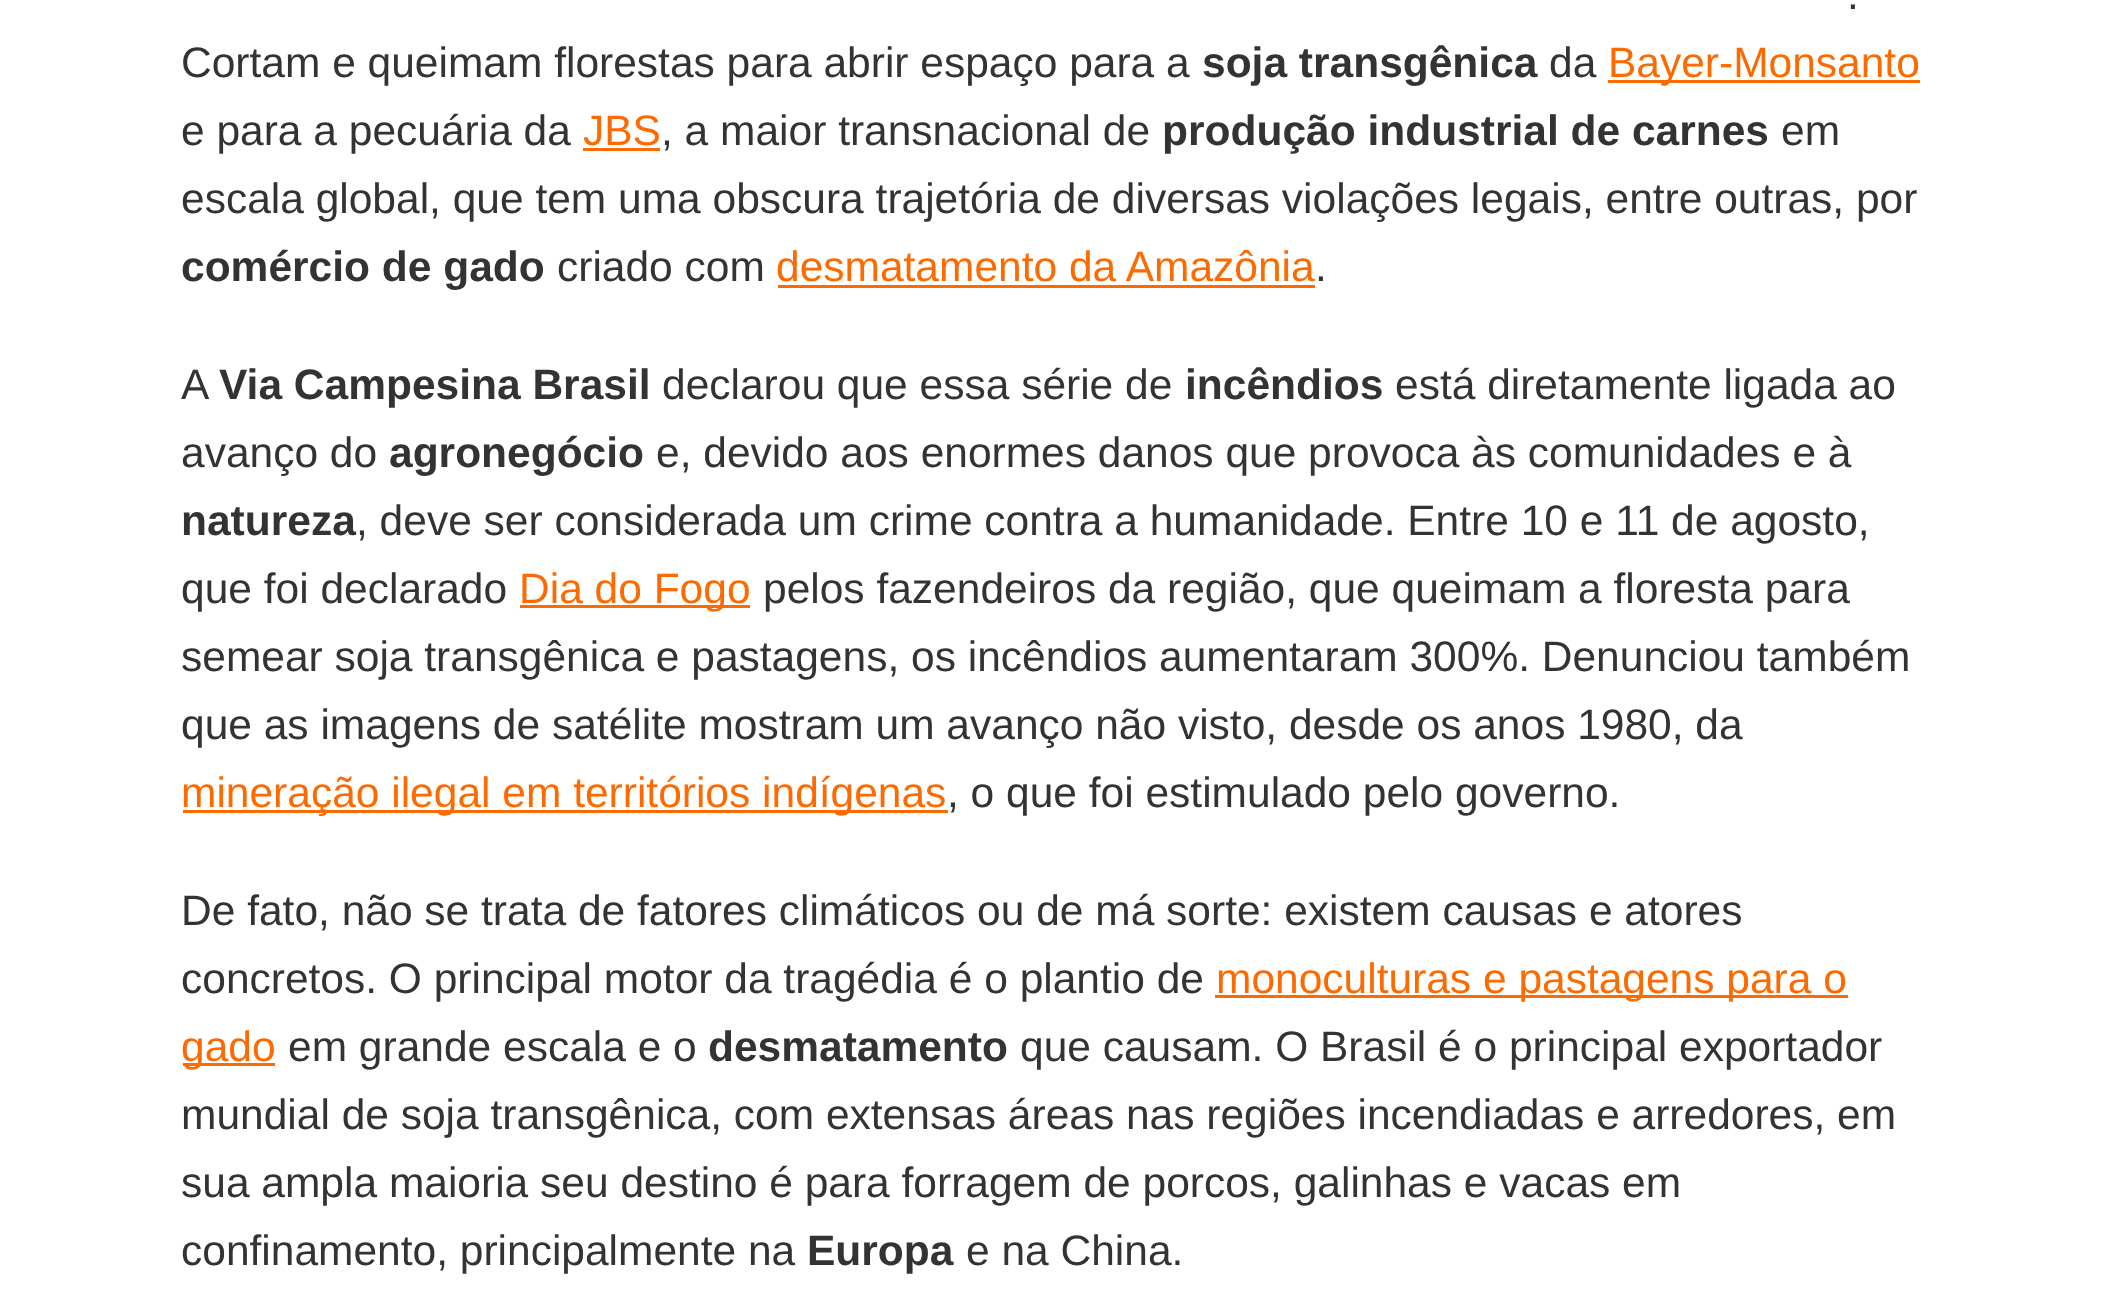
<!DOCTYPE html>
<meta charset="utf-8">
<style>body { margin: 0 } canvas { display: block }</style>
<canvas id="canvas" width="2124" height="1295"></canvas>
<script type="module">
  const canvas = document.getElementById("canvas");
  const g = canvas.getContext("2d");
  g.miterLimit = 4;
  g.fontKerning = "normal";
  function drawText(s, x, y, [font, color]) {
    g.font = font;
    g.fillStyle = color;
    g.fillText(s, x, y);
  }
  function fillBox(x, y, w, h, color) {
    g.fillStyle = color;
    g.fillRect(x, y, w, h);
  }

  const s1 = ["42.5px Liberation Sans", "#333333"];
  const s2 = ["bold 42.5px Liberation Sans", "#333333"];
  const s3 = ["42.5px Liberation Sans", "#FC6B01"];

  fillBox(0, 0, 2124, 1295, "#FFFFFF");
  drawText(".", 1847, 9, s1);
  drawText("Cortam e queimam florestas para abrir espaço para a", 181, 77, s1);
  drawText("soja transgênica", 1202, 77, s2);
  drawText("da", 1549, 77, s1);
  fillBox(1608, 80, 312, 3, "#FC6B01");
  drawText("Bayer-Monsanto", 1608, 77, s3);
  drawText("e para a pecuária da", 181, 145, s1);
  drawText("JBS", 583, 145, s3);
  fillBox(583, 148, 77, 3, "#FC6B01");
  drawText(", a maior transnacional de", 661, 145, s1);
  drawText("produção industrial de carnes", 1162, 145, s2);
  drawText("em", 1781, 145, s1);
  drawText("escala global, que tem uma obscura trajetória de diversas violações legais, entre outras, por", 181, 213, s1);
  drawText("comércio de gado", 181, 281, s2);
  drawText("criado com", 557, 281, s1);
  drawText("desmatamento da Amazônia", 776, 281, s3);
  fillBox(778, 285, 537, 3, "#FC6B01");
  drawText(".", 1315, 281, s1);
  drawText("A", 181, 399, s1);
  drawText("Via Campesina Brasil", 219, 399, s2);
  drawText("declarou que essa série de", 662, 399, s1);
  drawText("incêndios", 1185, 399, s2);
  drawText("está diretamente ligada ao", 1395, 399, s1);
  drawText("avanço do", 181, 467, s1);
  drawText("agronegócio", 389, 467, s2);
  drawText("e, devido aos enormes danos que provoca às comunidades e à", 656, 467, s1);
  drawText("natureza", 181, 535, s2);
  drawText(", deve ser considerada um crime contra a humanidade. Entre 10 e 11 de agosto,", 356, 535, s1);
  drawText("que foi declarado", 181, 603, s1);
  fillBox(520, 605, 230, 3, "#FC6B01");
  drawText("Dia do Fogo", 519, 603, s3);
  drawText("pelos fazendeiros da região, que queimam a floresta para", 763, 603, s1);
  drawText("semear soja transgênica e pastagens, os incêndios aumentaram 300%. Denunciou também", 181, 671, s1);
  drawText("que as imagens de satélite mostram um avanço não visto, desde os anos 1980, da", 181, 739, s1);
  fillBox(183, 810, 765, 3, "#FC6B01");
  drawText("mineração ilegal em territórios indígenas", 181, 807, s3);
  drawText(", o que foi estimulado pelo governo.", 947, 807, s1);
  drawText("De fato, não se trata de fatores climáticos ou de má sorte: existem causas e atores", 181, 925, s1);
  drawText("concretos. O principal motor da tragédia é o plantio de", 181, 993, s1);
  fillBox(1215, 995, 633, 3, "#FC6B01");
  drawText("monoculturas e pastagens para o", 1216, 993, s3);
  fillBox(183, 1063, 92, 3, "#FC6B01");
  drawText("gado", 181, 1061, s3);
  drawText("em grande escala e o", 288, 1061, s1);
  drawText("desmatamento", 708, 1061, s2);
  drawText("que causam. O Brasil é o principal exportador", 1020, 1061, s1);
  drawText("mundial de soja transgênica, com extensas áreas nas regiões incendiadas e arredores, em", 181, 1129, s1);
  drawText("sua ampla maioria seu destino é para forragem de porcos, galinhas e vacas em", 181, 1197, s1);
  drawText("confinamento, principalmente na", 181, 1265, s1);
  drawText("Europa", 807, 1265, s2);
  drawText("e na China.", 966, 1265, s1);
</script>
